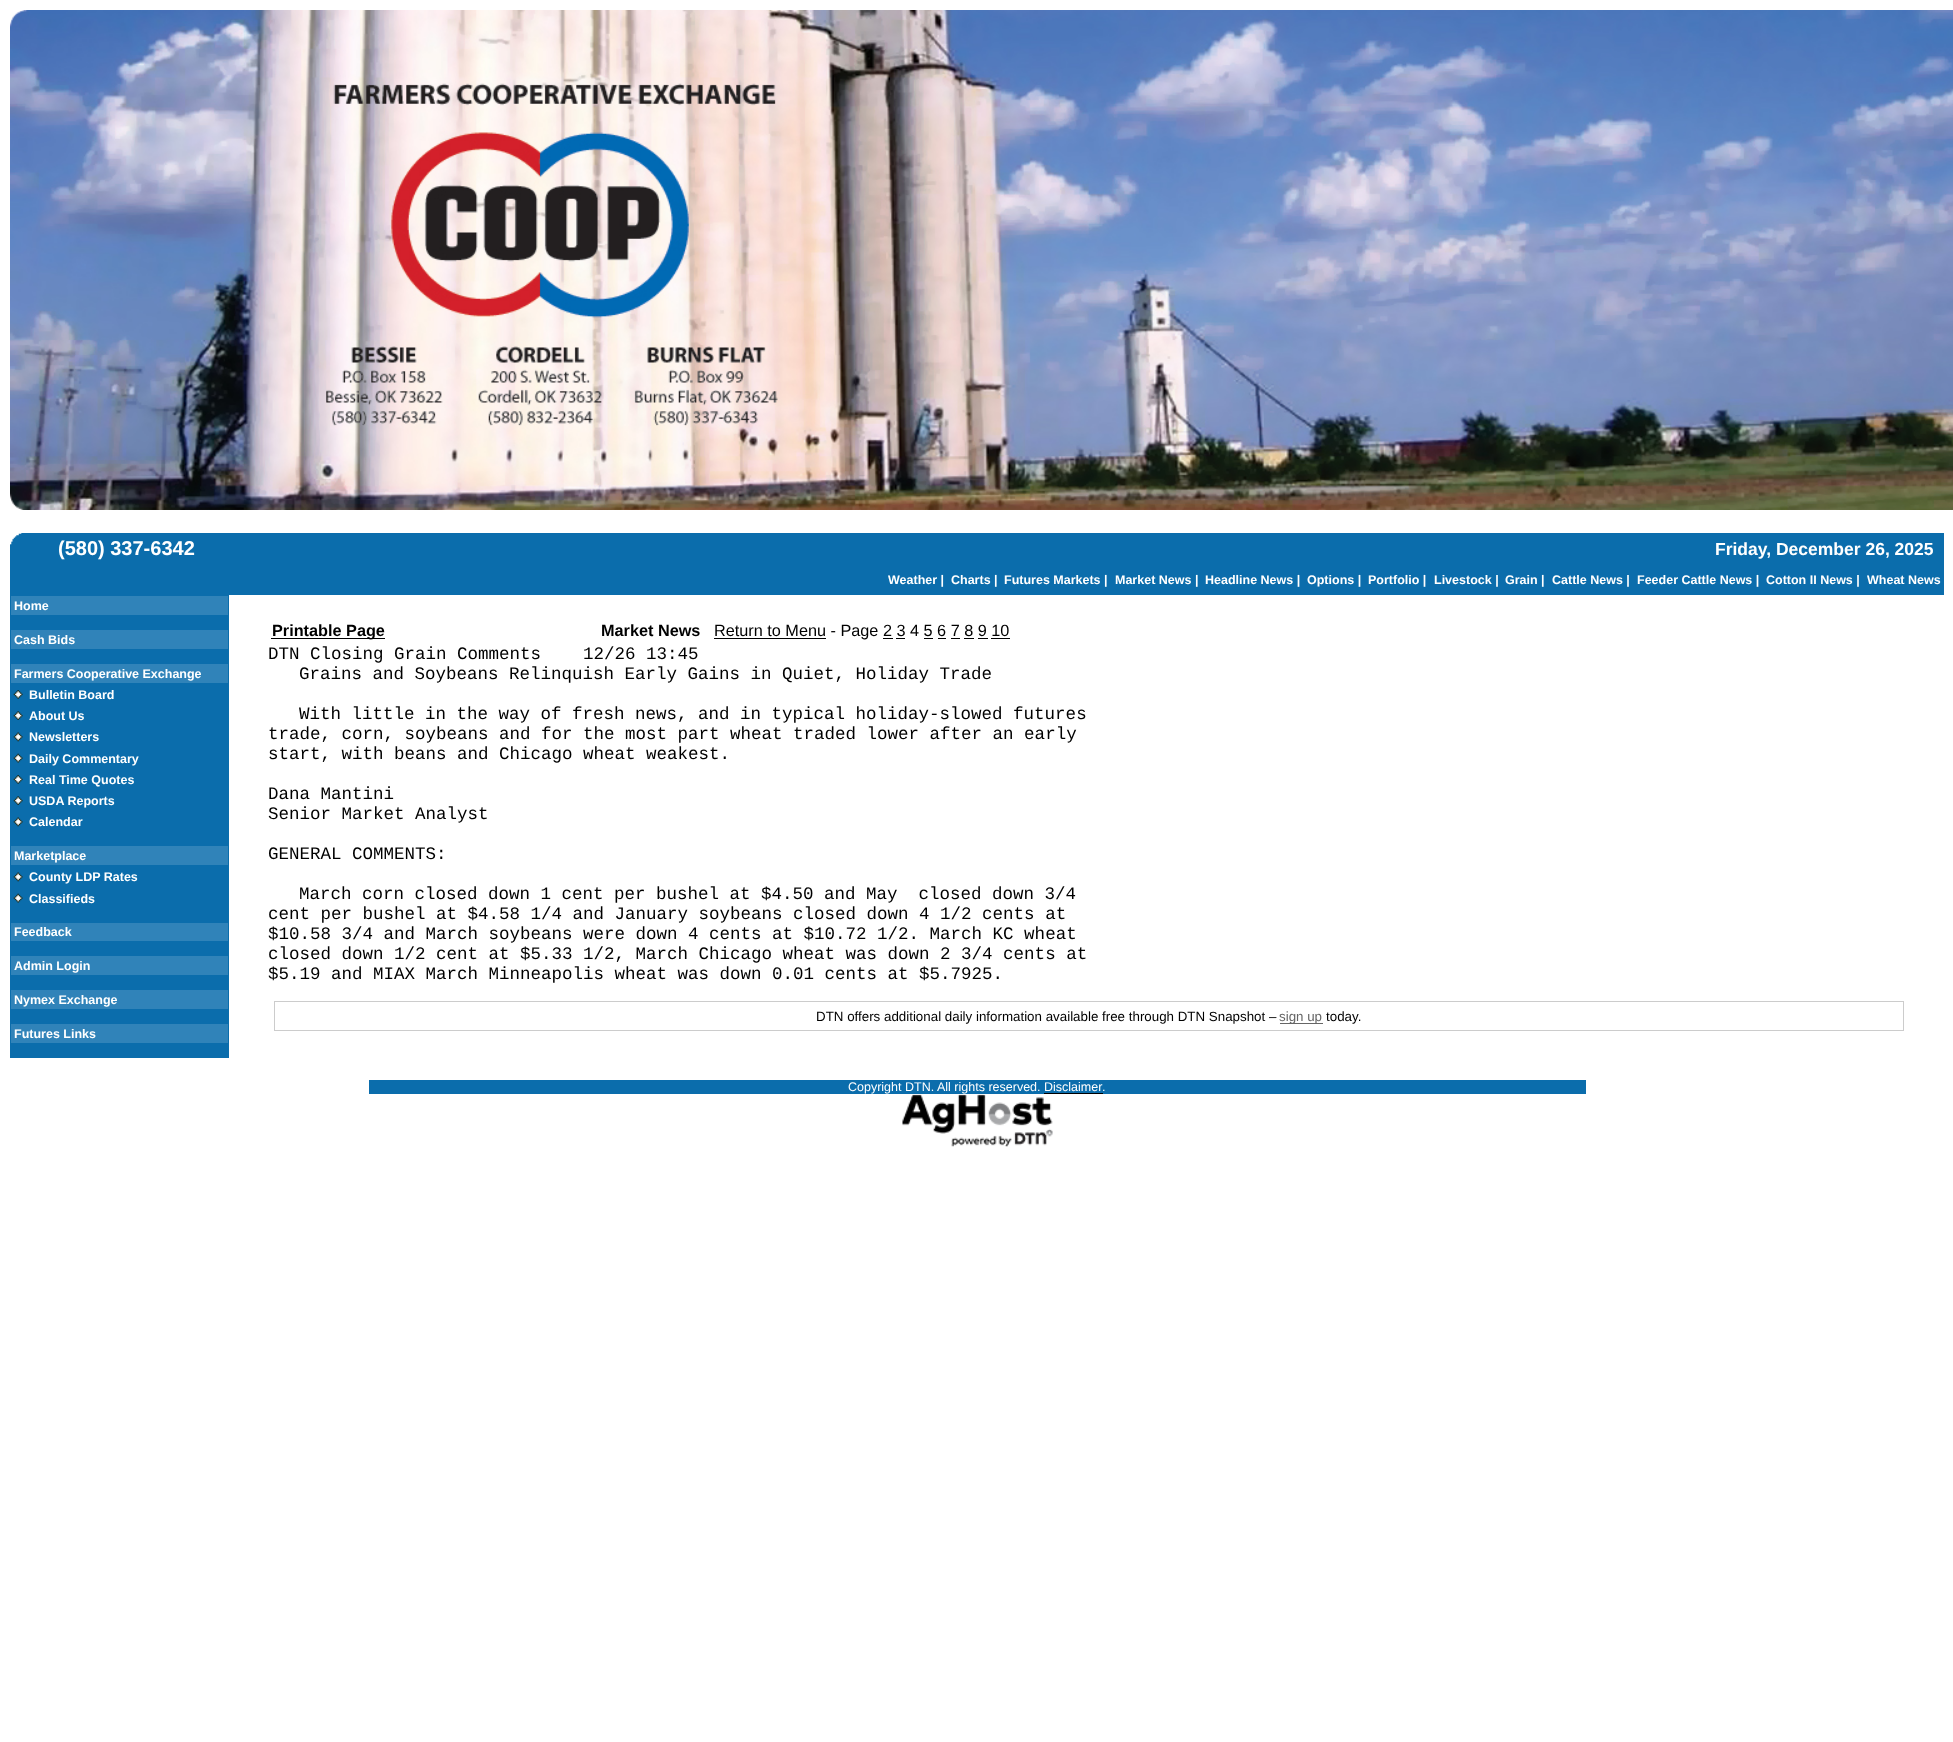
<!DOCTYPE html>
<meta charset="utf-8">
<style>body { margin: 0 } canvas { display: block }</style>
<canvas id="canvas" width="1953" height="1742"></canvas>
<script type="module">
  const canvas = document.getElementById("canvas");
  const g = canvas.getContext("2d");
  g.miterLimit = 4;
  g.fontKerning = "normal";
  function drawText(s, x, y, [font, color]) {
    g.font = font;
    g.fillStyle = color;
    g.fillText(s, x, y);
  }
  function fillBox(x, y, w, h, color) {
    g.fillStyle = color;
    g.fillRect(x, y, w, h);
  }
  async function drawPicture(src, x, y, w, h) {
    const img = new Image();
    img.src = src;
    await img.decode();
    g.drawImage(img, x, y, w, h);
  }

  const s1 = ["bold 20px Liberation Sans", "#FFFFFF"];
  const s2 = ["bold 17.5px Liberation Sans", "#FFFFFF"];
  const s3 = ["bold 12.5px Liberation Sans", "#FFFFFF"];
  const s4 = ["bold 16.25px Liberation Sans", "#000000"];
  const s5 = ["16.25px Liberation Sans", "#000000"];
  const s6 = ["17.5px Liberation Mono", "#000000"];
  const s7 = ["13.35px Liberation Sans", "#000000"];
  const s8 = ["13.35px Liberation Sans", "#666666"];
  const s9 = ["12.5px Liberation Sans", "#FFFFFF"];

  fillBox(0, 0, 1953, 1742, "#FFFFFF");
  await drawPicture("pic1.png", 10, 10, 1943, 500);
  fillBox(10, 533, 1934, 62, "#0B6DAC");
  await drawPicture("pic2.png", 10, 533, 12, 12);
  drawText("(580) 337-6342", 58, 555, s1);
  drawText("Friday, December 26, 2025", 1715, 555, s2);
  drawText("Weather |", 888, 584, s3);
  drawText("Charts |", 951, 584, s3);
  drawText("Futures Markets |", 1004, 584, s3);
  drawText("Market News |", 1115, 584, s3);
  drawText("Headline News |", 1205, 584, s3);
  drawText("Options |", 1307, 584, s3);
  drawText("Portfolio |", 1368, 584, s3);
  drawText("Livestock |", 1434, 584, s3);
  drawText("Grain |", 1505, 584, s3);
  drawText("Cattle News |", 1552, 584, s3);
  drawText("Feeder Cattle News |", 1637, 584, s3);
  drawText("Cotton II News |", 1766, 584, s3);
  drawText("Wheat News", 1867, 584, s3);
  fillBox(10, 595, 219, 463, "#0B6DAC");
  fillBox(11, 596, 217, 19, "#3083B9");
  drawText("Home", 14, 610, s3);
  fillBox(11, 630, 217, 19, "#3083B9");
  drawText("Cash Bids", 14, 644, s3);
  fillBox(11, 664, 217, 19, "#3083B9");
  drawText("Farmers Cooperative Exchange", 14, 678, s3);
  await drawPicture("pic3.png", 13, 690, 10, 9);
  drawText("Bulletin Board", 29, 699, s3);
  await drawPicture("pic4.png", 13, 711, 10, 9);
  drawText("About Us", 29, 720, s3);
  await drawPicture("pic5.png", 13, 732, 10, 10);
  drawText("Newsletters", 29, 741, s3);
  await drawPicture("pic6.png", 13, 753, 10, 10);
  drawText("Daily Commentary", 29, 763, s3);
  await drawPicture("pic7.png", 13, 775, 10, 9);
  drawText("Real Time Quotes", 29, 784, s3);
  await drawPicture("pic4.png", 13, 796, 10, 9);
  drawText("USDA Reports", 29, 805, s3);
  await drawPicture("pic5.png", 13, 817, 10, 10);
  drawText("Calendar", 29, 826, s3);
  fillBox(11, 846, 217, 19, "#3083B9");
  drawText("Marketplace", 14, 860, s3);
  await drawPicture("pic5.png", 13, 872, 10, 10);
  drawText("County LDP Rates", 29, 881, s3);
  await drawPicture("pic6.png", 13, 893, 10, 10);
  drawText("Classifieds", 29, 903, s3);
  fillBox(11, 923, 217, 18, "#3083B9");
  drawText("Feedback", 14, 936, s3);
  fillBox(11, 956, 217, 19, "#3083B9");
  drawText("Admin Login", 14, 970, s3);
  fillBox(11, 990, 217, 19, "#3083B9");
  drawText("Nymex Exchange", 14, 1004, s3);
  fillBox(11, 1024, 217, 19, "#3083B9");
  drawText("Futures Links", 14, 1038, s3);
  fillBox(271, 638, 114, 1, "#000000");
  drawText("Printable Page", 272, 636, s4);
  drawText("Market News", 601, 636, s4);
  fillBox(714, 638, 112, 1, "#000000");
  drawText("Return to Menu - Page 2 3 4 5 6 7 8 9 10", 714, 636, s5);
  fillBox(883, 638, 10, 1, "#000000");
  fillBox(896, 638, 9, 1, "#000000");
  fillBox(924, 638, 9, 1, "#000000");
  fillBox(938, 638, 8, 1, "#000000");
  fillBox(951, 638, 9, 1, "#000000");
  fillBox(964, 638, 10, 1, "#000000");
  fillBox(978, 638, 10, 1, "#000000");
  fillBox(991, 638, 19, 1, "#000000");
  drawText("DTN Closing Grain Comments    12/26 13:45", 268, 659, s6);
  drawText("Grains and Soybeans Relinquish Early Gains in Quiet, Holiday Trade", 299, 679, s6);
  drawText("With little in the way of fresh news, and in typical holiday-slowed futures", 299, 719, s6);
  drawText("trade, corn, soybeans and for the most part wheat traded lower after an early", 268, 739, s6);
  drawText("start, with beans and Chicago wheat weakest.", 268, 759, s6);
  drawText("Dana Mantini", 268, 799, s6);
  drawText("Senior Market Analyst", 268, 819, s6);
  drawText("GENERAL COMMENTS:", 268, 859, s6);
  drawText("March corn closed down 1 cent per bushel at $4.50 and May  closed down 3/4", 299, 899, s6);
  drawText("cent per bushel at $4.58 1/4 and January soybeans closed down 4 1/2 cents at", 268, 919, s6);
  drawText("$10.58 3/4 and March soybeans were down 4 cents at $10.72 1/2. March KC wheat", 268, 939, s6);
  drawText("closed down 1/2 cent at $5.33 1/2, March Chicago wheat was down 2 3/4 cents at", 268, 959, s6);
  drawText("$5.19 and MIAX March Minneapolis wheat was down 0.01 cents at $5.7925.", 268, 979, s6);
  g.strokeStyle = "#CCCCCC";
  g.strokeRect(274.5, 1001.5, 1629, 29);
  drawText("DTN offers additional daily information available free through DTN Snapshot –", 816, 1021, s7);
  fillBox(1280, 1023, 43, 1, "#666666");
  drawText("sign up", 1279, 1021, s8);
  drawText("today.", 1326, 1021, s7);
  fillBox(369, 1080, 1217, 14, "#0B6DAC");
  drawText("Copyright DTN.", 848, 1091, s9);
  drawText("All rights reserved. Disclaimer", 937, 1091, s9);
  drawText(".", 1102, 1091, s9);
  fillBox(1044, 1093, 59, 1, "#000000");
  await drawPicture("pic8.png", 902, 1094, 151, 53);
</script>
